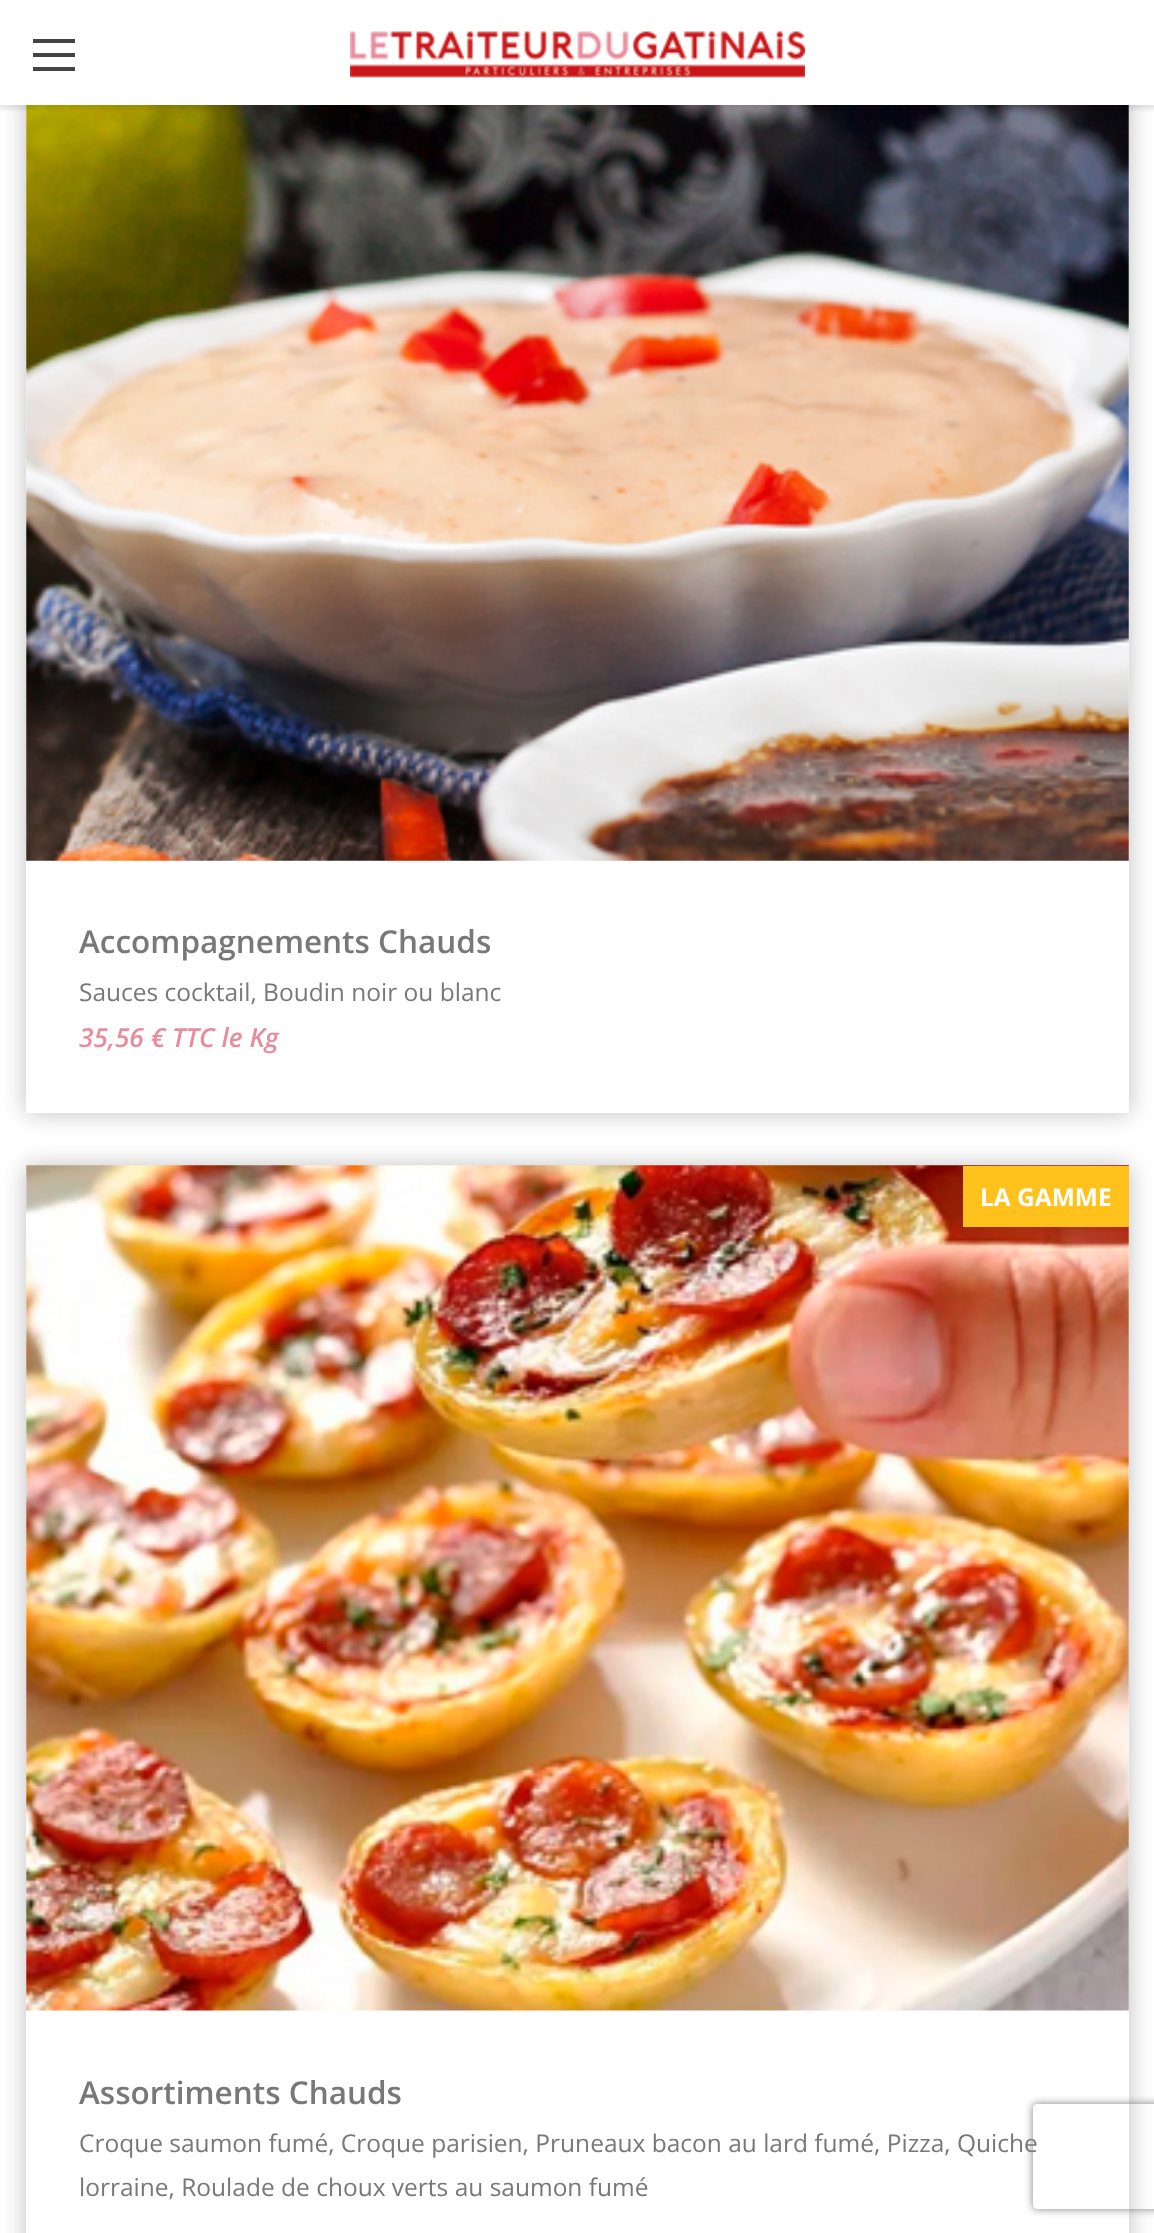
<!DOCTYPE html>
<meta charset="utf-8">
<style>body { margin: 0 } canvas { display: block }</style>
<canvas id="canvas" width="1154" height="2233"></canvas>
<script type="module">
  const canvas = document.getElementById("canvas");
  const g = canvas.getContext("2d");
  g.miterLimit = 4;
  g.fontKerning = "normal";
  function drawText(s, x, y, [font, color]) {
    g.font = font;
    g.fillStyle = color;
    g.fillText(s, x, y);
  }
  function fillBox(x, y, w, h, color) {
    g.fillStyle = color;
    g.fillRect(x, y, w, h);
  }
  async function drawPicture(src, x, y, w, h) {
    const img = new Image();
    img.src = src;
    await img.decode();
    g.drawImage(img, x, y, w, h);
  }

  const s1 = ["600 31.5px Open Sans", "#787878"];
  const s2 = ["24.5px Open Sans", "#787878"];
  const s3 = ["italic 600 26.25px Open Sans", "#E78C9C"];
  const s4 = ["bold 24.5px Open Sans", "#FFFFFF"];

  fillBox(0, 0, 1154, 2233, "#FFFFFF");
  g.fillStyle = "rgba(0, 0, 0, 0.25)";
  g.filter = "blur(12px)";
  g.beginPath();
  g.rect(26, 14, 1103, 1099);
  g.fill();
  g.filter = "none";
  fillBox(26, 105, 1103, 1008, "#FFFFFF");
  await drawPicture("pic2.png", 26, 105, 1103, 756);
  g.fillStyle = "rgba(0, 0, 0, 0.1)";
  g.filter = "blur(2.5px)";
  g.beginPath();
  g.rect(-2, -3, 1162, 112);
  g.fill();
  g.filter = "none";
  fillBox(0, 0, 1154, 105, "#FFFFFF");
  fillBox(33, 39, 42, 4, "#444444");
  fillBox(33, 53, 42, 4, "#444444");
  fillBox(33, 67, 42, 4, "#444444");
  await drawPicture("pic1.png", 350, 31, 455, 47);
  drawText("Accompagnements Chauds", 79, 953, s1);
  drawText("Sauces cocktail, Boudin noir ou blanc", 79, 1001, s2);
  drawText("35,56 € TTC le Kg", 79, 1047, s3);
  g.fillStyle = "rgba(0, 0, 0, 0.25)";
  g.filter = "blur(12px)";
  g.beginPath();
  g.rect(26, 1166, 1103, 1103);
  g.fill();
  g.filter = "none";
  fillBox(26, 1166, 1103, 1067, "#FFFFFF");
  await drawPicture("pic3.png", 26, 1165, 1103, 846);
  fillBox(963, 1166, 166, 61, "#FFC21C");
  drawText("LA GAMME", 980, 1206, s4);
  drawText("Assortiments Chauds", 79, 2104, s1);
  drawText("Croque saumon fumé, Croque parisien, Pruneaux bacon au lard fumé, Pizza, Quiche", 79, 2152, s2);
  drawText("lorraine, Roulade de choux verts au saumon fumé", 79, 2196, s2);
  g.save();
  g.beginPath();
  g.moveTo(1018, 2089);
  g.lineTo(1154, 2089);
  g.lineTo(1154, 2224);
  g.lineTo(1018, 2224);
  g.closePath();
  g.moveTo(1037, 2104);
  g.lineTo(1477, 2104);
  g.bezierCurveTo(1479, 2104, 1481, 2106, 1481, 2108);
  g.lineTo(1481, 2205);
  g.bezierCurveTo(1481, 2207, 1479, 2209, 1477, 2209);
  g.lineTo(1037, 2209);
  g.bezierCurveTo(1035, 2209, 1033, 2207, 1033, 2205);
  g.lineTo(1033, 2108);
  g.bezierCurveTo(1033, 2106, 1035, 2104, 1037, 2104);
  g.closePath();
  g.clip("evenodd");
  g.fillStyle = "#808080";
  g.filter = "blur(4.5px)";
  g.beginPath();
  g.roundRect(1033, 2104, 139, 105, 4);
  g.fill();
  g.filter = "none";
  g.restore();
</script>
